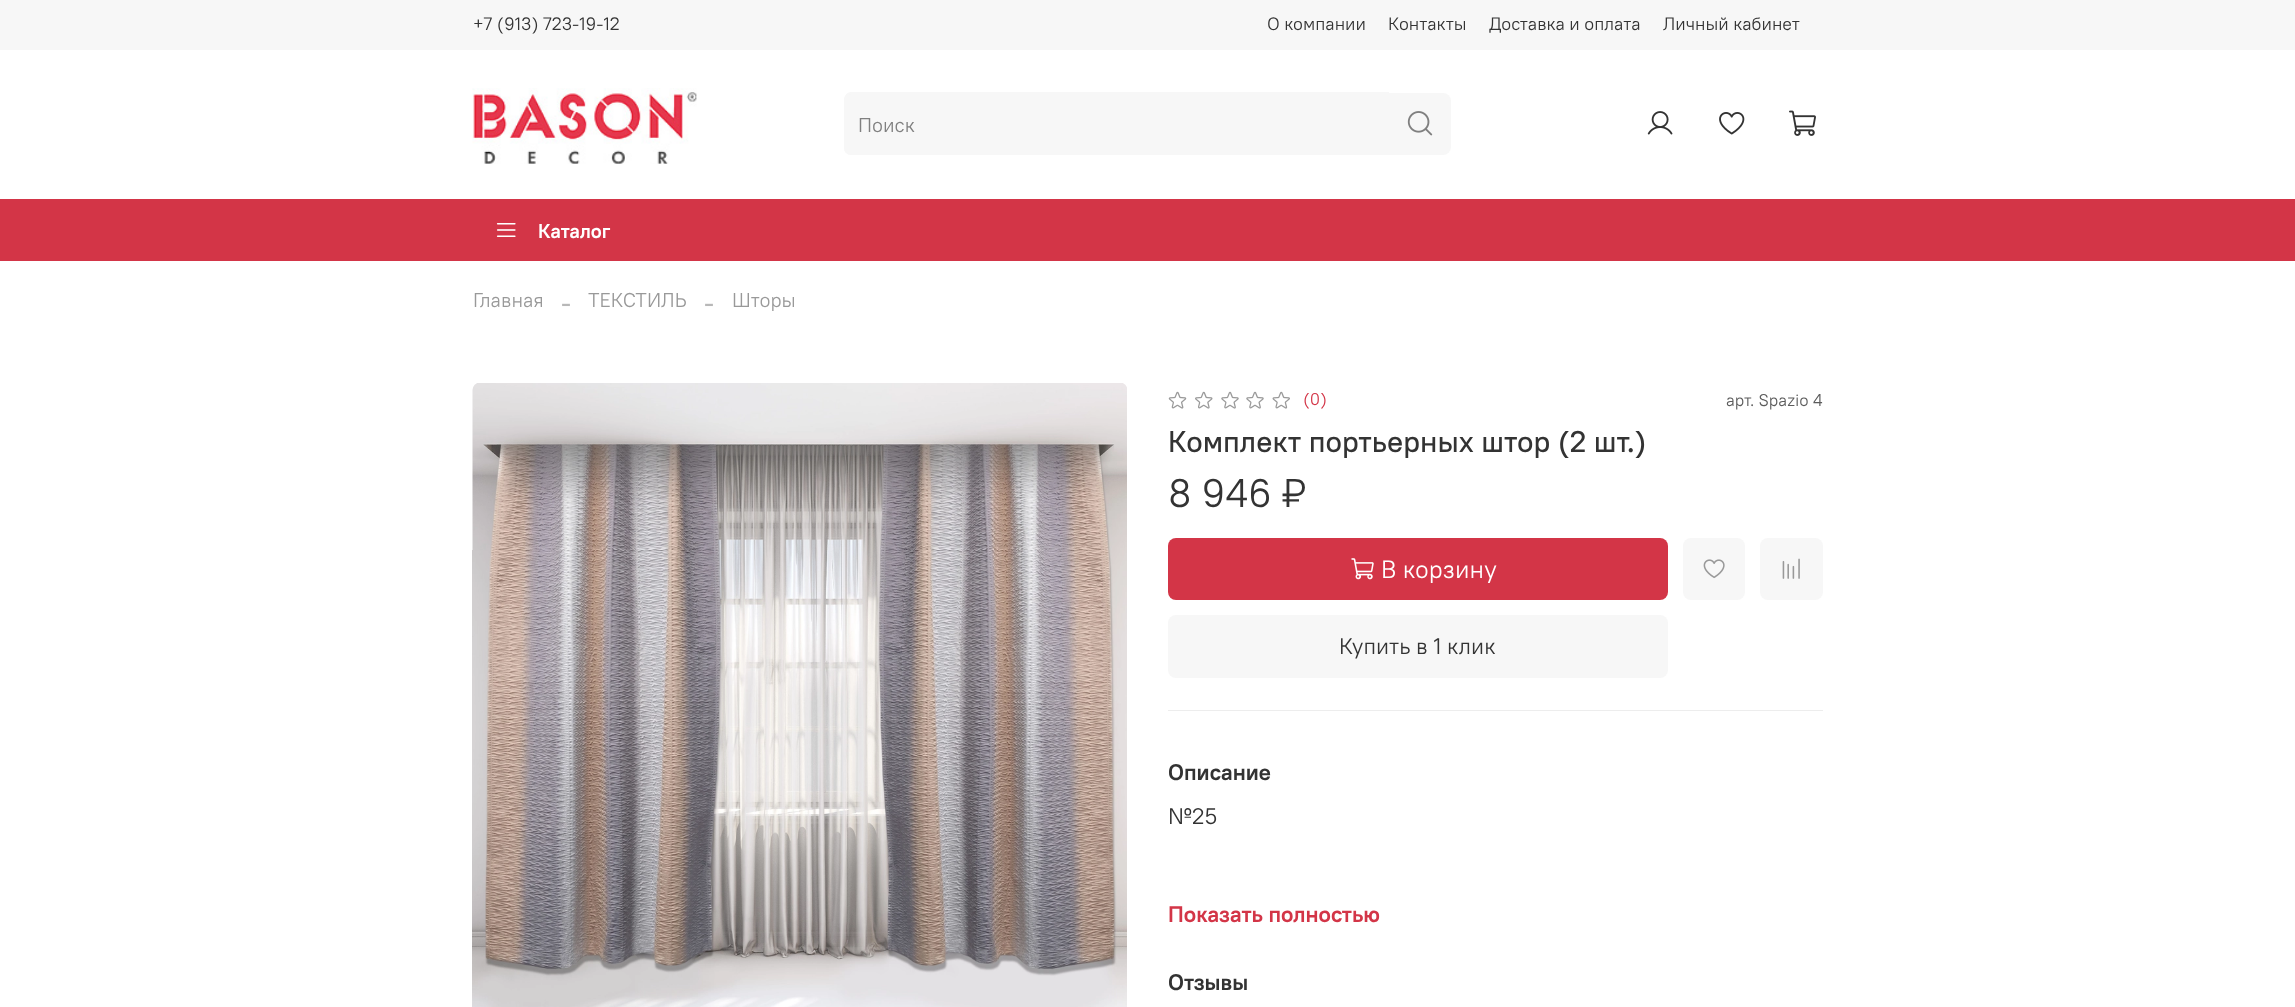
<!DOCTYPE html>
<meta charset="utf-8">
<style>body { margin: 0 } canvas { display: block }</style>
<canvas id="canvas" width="2295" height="1007"></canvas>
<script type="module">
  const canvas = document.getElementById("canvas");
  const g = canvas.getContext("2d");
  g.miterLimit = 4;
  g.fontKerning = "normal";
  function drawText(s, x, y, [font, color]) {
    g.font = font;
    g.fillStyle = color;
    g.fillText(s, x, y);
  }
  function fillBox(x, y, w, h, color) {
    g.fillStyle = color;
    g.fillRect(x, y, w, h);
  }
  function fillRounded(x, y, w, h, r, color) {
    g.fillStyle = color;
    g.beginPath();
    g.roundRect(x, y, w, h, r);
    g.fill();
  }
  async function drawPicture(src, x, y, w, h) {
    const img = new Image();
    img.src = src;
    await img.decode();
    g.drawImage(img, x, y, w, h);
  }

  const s1 = ["18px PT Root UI", "#333333"];
  const s2 = ["20px PT Root UI", "#808080"];
  const s3 = ["bold 20px PT Root UI", "#FFFFFF"];
  const s4 = ["20px PT Root UI", "#999999"];
  const s5 = ["30px Liberation Serif", "#B8B8B8"];
  const s6 = ["17px PT Root UI", "#D33547"];
  const s7 = ["17px PT Root UI", "#5C5C5C"];
  const s8 = ["500 30px PT Root UI", "#333333"];
  const s9 = ["40px PT Root UI", "#333333"];
  const s10 = ["25px PT Root UI", "#FFFFFF"];
  const s11 = ["22.5px PT Root UI", "#333333"];
  const s12 = ["bold 22.5px PT Root UI", "#333333"];
  const s13 = ["bold 22.5px PT Root UI", "#D33547"];

  fillBox(0, 0, 2295, 1007, "#FFFFFF");
  fillBox(0, 0, 2295, 50, "#F7F7F7");
  drawText("+7 (913) 723-19-12", 473, 30, s1);
  drawText("О компании", 1267, 30, s1);
  drawText("Контакты", 1388, 30, s1);
  drawText("Доставка и оплата", 1489, 30, s1);
  drawText("Личный кабинет", 1663, 30, s1);
  await drawPicture("pic1.png", 472, 88, 225, 76);
  g.fillStyle = "#F7F7F7";
  g.beginPath();
  g.roundRect(844, 93, 545, 62, [8, 0, 0, 8]);
  g.fill();
  g.beginPath();
  g.moveTo(851, 92);
  g.lineTo(1389, 92);
  g.lineTo(1389, 155);
  g.lineTo(851, 155);
  g.bezierCurveTo(847, 155, 844, 152, 844, 148);
  g.lineTo(844, 100);
  g.bezierCurveTo(844, 96, 847, 92, 851, 92);
  g.closePath();
  g.moveTo(851, 94);
  g.lineTo(1389, 94);
  g.lineTo(1389, 154);
  g.lineTo(851, 154);
  g.bezierCurveTo(848, 154, 845, 151, 845, 148);
  g.lineTo(845, 100);
  g.bezierCurveTo(845, 97, 848, 94, 851, 94);
  g.closePath();
  g.fill("evenodd");
  drawText("Поиск", 858, 132, s2);
  g.fillStyle = "#F7F7F7";
  g.beginPath();
  g.roundRect(1389, 93, 62, 62, [0, 8, 8, 0]);
  g.fill();
  await drawPicture("pic2.png", 1407, 111, 26, 25);
  await drawPicture("pic3.png", 1647, 111, 26, 24);
  await drawPicture("pic4.png", 1719, 112, 26, 23);
  await drawPicture("pic5.png", 1789, 110, 27, 26);
  fillBox(0, 199, 2295, 62, "#D33547");
  await drawPicture("pic6.png", 496, 223, 20, 14);
  drawText("Каталог", 538, 238, s3);
  drawText("Главная", 473, 307, s4);
  drawText("-", 561, 312, s5);
  drawText("ТЕКСТИЛЬ", 588, 307, s4);
  drawText("-", 704, 312, s5);
  drawText("Шторы", 732, 307, s4);
  await drawPicture("pic7.png", 472, 383, 655, 624);
  await drawPicture("pic8.png", 1168, 391, 19, 18);
  await drawPicture("pic9.png", 1195, 391, 18, 18);
  await drawPicture("pic10.png", 1221, 391, 18, 18);
  await drawPicture("pic10.png", 1246, 391, 18, 18);
  await drawPicture("pic11.png", 1272, 391, 18, 18);
  drawText("(0)", 1303, 405, s6);
  drawText("арт. Spazio 4", 1726, 406, s7);
  drawText("Комплект портьерных штор (2 шт.)", 1168, 452, s8);
  drawText("8 946 ₽", 1168, 507, s9);
  fillRounded(1168, 538, 500, 62, 8, "#D33547");
  await drawPicture("pic12.png", 1351, 558, 23, 22);
  drawText("В корзину", 1381, 578, s10);
  fillRounded(1168, 615, 500, 63, 8, "#F7F7F7");
  drawText("Купить в 1 клик", 1339, 654, s11);
  fillRounded(1683, 538, 62, 62, 8, "#F7F7F7");
  await drawPicture("pic13.png", 1703, 559, 22, 20);
  fillRounded(1760, 538, 63, 62, 8, "#F7F7F7");
  await drawPicture("pic14.png", 1782, 558, 18, 21);
  fillBox(1168, 710, 655, 1, "#EDEDED");
  drawText("Описание", 1168, 780, s12);
  drawText("№25", 1168, 824, s11);
  drawText("Показать полностью", 1168, 922, s13);
  drawText("Отзывы", 1168, 990, s12);
</script>
